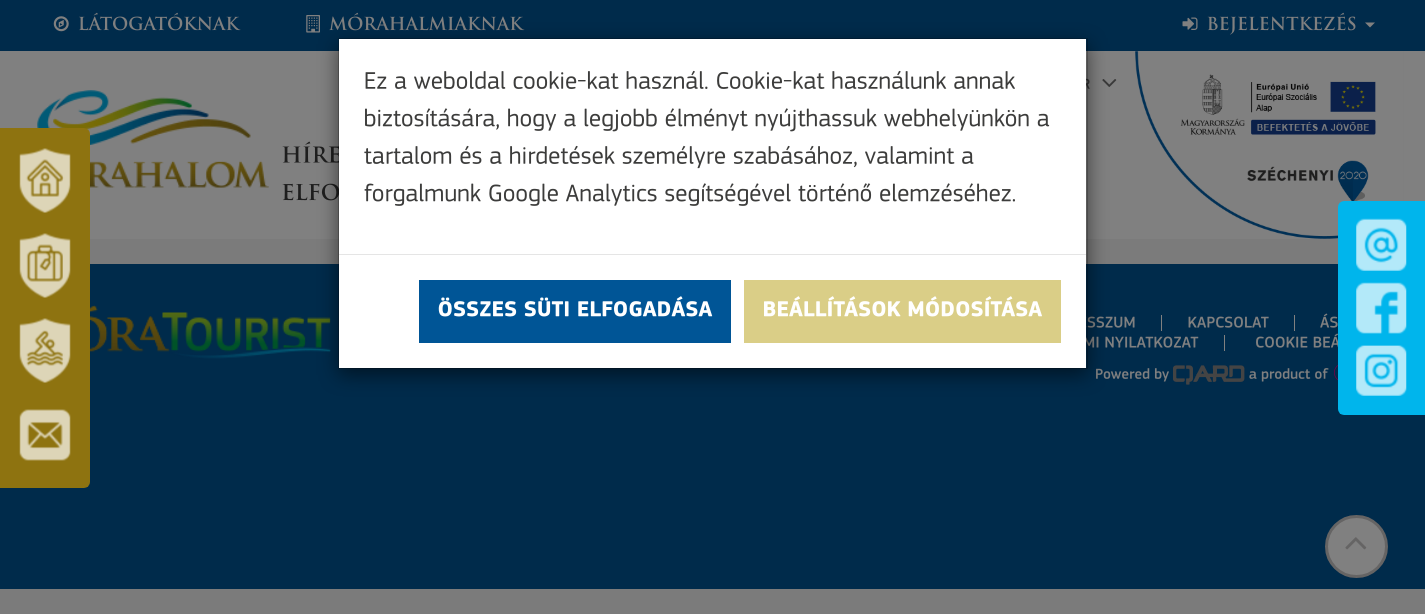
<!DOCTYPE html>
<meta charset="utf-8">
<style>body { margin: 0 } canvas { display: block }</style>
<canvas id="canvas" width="1425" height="614"></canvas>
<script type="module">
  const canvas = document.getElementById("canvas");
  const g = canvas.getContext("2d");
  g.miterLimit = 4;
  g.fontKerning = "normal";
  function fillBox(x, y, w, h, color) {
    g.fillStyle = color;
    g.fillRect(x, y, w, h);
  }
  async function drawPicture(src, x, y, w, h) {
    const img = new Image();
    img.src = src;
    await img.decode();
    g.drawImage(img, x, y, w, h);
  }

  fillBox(0, 0, 1425, 614, "#7B7B7B");
  fillBox(0, 0, 1425, 51, "#002B4B");
  await drawPicture("pic1.png", 53, 16, 16, 16);
  await drawPicture("pic2.png", 79, 12, 162, 19);
  await drawPicture("pic3.png", 306, 15, 14, 18);
  await drawPicture("pic4.png", 329, 12, 196, 19);
  await drawPicture("pic5.png", 1182, 17, 16, 13);
  await drawPicture("pic6.png", 1207, 12, 149, 23);
  g.fillStyle = "#808080";
  g.beginPath();
  g.moveTo(1365, 22.5);
  g.lineTo(1375, 22.5);
  g.lineTo(1370, 27.5);
  g.closePath();
  g.fill();
  fillBox(0, 51, 1425, 188, "#808080");
  await drawPicture("pic7.png", 37, 90, 232, 98);
  await drawPicture("pic8.png", 1086, 78, 4, 11);
  await drawPicture("pic9.png", 1102, 79, 15, 8);
  await drawPicture("pic10.png", 1135, 51, 269, 188);
  await drawPicture("pic11.png", 282, 141, 57, 22);
  await drawPicture("pic12.png", 282, 183, 57, 18);
  fillBox(0, 264, 1425, 325, "#002B4B");
  g.fillStyle = "#8E7310";
  g.beginPath();
  g.roundRect(0, 128, 90, 360, [0, 6, 6, 0]);
  g.fill();
  await drawPicture("pic13.png", 19, 148, 52, 65);
  await drawPicture("pic14.png", 19, 233, 52, 65);
  await drawPicture("pic15.png", 19, 318, 52, 65);
  await drawPicture("pic16.png", 19, 409, 52, 52);
  g.fillStyle = "#00B5EC";
  g.beginPath();
  g.roundRect(1338, 201, 87, 214, [6, 0, 0, 6]);
  g.fill();
  await drawPicture("pic17.png", 1356, 218, 51, 53);
  await drawPicture("pic18.png", 1356, 282, 51, 52);
  await drawPicture("pic19.png", 1356, 345, 51, 51);
  await drawPicture("pic27.png", 90, 305, 241, 54);
  await drawPicture("pic28.png", 1086, 316, 49, 12);
  await drawPicture("pic31.png", 1086, 336, 113, 12);
  await drawPicture("pic33.png", 1096, 368, 73, 14);
  g.fillStyle = "rgba(0, 0, 0, 0.5)";
  g.filter = "blur(9.5px)";
  g.beginPath();
  g.rect(338, 44, 750, 331);
  g.fill();
  g.filter = "none";
  fillBox(339, 39, 747, 329, "#FFFFFF");
  g.strokeStyle = "rgba(0, 0, 0, 0.2)";
  g.strokeRect(338.5, 38.5, 749, 330);
  await drawPicture("pic20.png", 365, 70, 650, 19);
  await drawPicture("pic21.png", 365, 108, 685, 24);
  await drawPicture("pic22.png", 364, 145, 610, 24);
  await drawPicture("pic23.png", 364, 183, 651, 23);
  fillBox(339, 254, 747, 1, "#E5E5E5");
  fillBox(419, 280, 312, 63, "#005596");
  await drawPicture("pic24.png", 438, 296, 275, 21);
  fillBox(744, 280, 317, 63, "#DACE87");
  await drawPicture("pic25.png", 764, 296, 278, 21);
  g.fillStyle = "#808080";
  g.beginPath();
  g.arc(1356.5, 546.5, 30, 0, Math.PI * 2);
  g.fill();
  g.strokeStyle = "#656464";
  g.lineWidth = 3;
  g.stroke();
  await drawPicture("pic26.png", 1345, 537, 22, 13);
  fillBox(1161, 315, 1, 16, "#808080");
  await drawPicture("pic29.png", 1188, 316, 81, 12);
  fillBox(1294, 315, 1, 16, "#808080");
  await drawPicture("pic30.png", 1320, 313, 18, 15);
  fillBox(1224, 335, 1, 16, "#808080");
  await drawPicture("pic32.png", 1256, 333, 82, 15);
  await drawPicture("pic34.png", 1173, 365, 72, 20);
  await drawPicture("pic35.png", 1249, 368, 80, 14);
  await drawPicture("pic36.png", 1333, 365, 5, 16);
</script>
